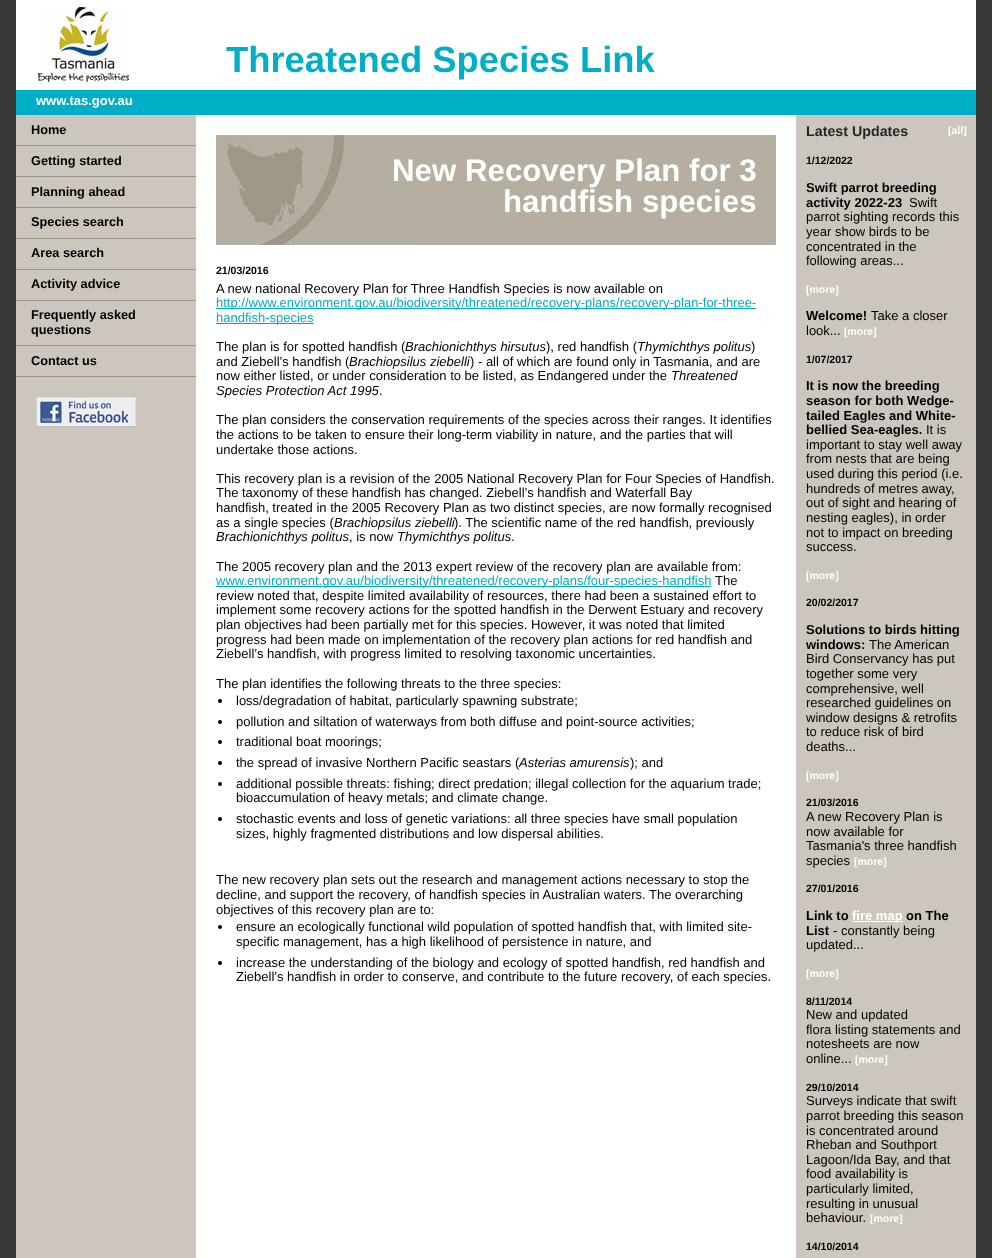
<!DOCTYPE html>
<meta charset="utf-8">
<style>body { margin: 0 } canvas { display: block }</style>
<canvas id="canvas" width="992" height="1258"></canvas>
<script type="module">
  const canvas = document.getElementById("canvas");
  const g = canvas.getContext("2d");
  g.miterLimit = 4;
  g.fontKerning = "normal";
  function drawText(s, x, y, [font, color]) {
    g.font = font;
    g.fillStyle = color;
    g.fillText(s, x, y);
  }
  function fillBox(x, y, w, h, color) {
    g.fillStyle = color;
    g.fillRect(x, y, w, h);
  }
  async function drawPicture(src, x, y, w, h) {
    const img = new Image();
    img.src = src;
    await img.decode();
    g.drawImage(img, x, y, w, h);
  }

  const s1 = ["bold 36.4px Liberation Sans", "#00AEC5"];
  const s2 = ["bold 13px Liberation Sans", "#FFFFFF"];
  const s3 = ["bold 12.75px Liberation Sans", "#000000"];
  const s4 = ["bold 31.25px Liberation Sans", "#FFFFFF"];
  const s5 = ["bold 10.5px Liberation Sans", "#000000"];
  const s6 = ["13px Liberation Sans", "#000000"];
  const s7 = ["13px Liberation Sans", "#00AEC5"];
  const s8 = ["italic 13px Liberation Sans", "#000000"];
  const s9 = ["bold 14.25px Liberation Sans", "#262626"];
  const s10 = ["bold 10.5px Liberation Sans", "#FFFFFF"];
  const s11 = ["bold 13px Liberation Sans", "#000000"];

  fillBox(0, 0, 992, 1258, "#393939");
  fillBox(196, 115, 600, 1143, "#FFFFFF");
  fillBox(16, 115, 180, 1143, "#CDC6BE");
  fillBox(16, 0, 960, 90, "#FFFFFF");
  await drawPicture("pic1.png", 38, 7, 91, 75);
  drawText("Threatened Species Link", 226, 72, s1);
  fillBox(16, 90, 960, 25, "#00AEC5");
  drawText("www.tas.gov.au", 36, 105, s2);
  fillBox(16, 145, 180, 1, "#9F9685");
  drawText("Home", 31, 134, s3);
  fillBox(16, 176, 180, 1, "#9F9685");
  drawText("Getting started", 31, 165, s3);
  fillBox(16, 207, 180, 1, "#9F9685");
  drawText("Planning ahead", 31, 196, s3);
  fillBox(16, 238, 180, 1, "#9F9685");
  drawText("Species search", 31, 226, s3);
  fillBox(16, 269, 180, 1, "#9F9685");
  drawText("Area search", 31, 257, s3);
  fillBox(16, 300, 180, 1, "#9F9685");
  drawText("Activity advice", 31, 288, s3);
  fillBox(16, 345, 180, 1, "#9F9685");
  drawText("Frequently asked", 31, 319, s3);
  drawText("questions", 31, 334, s3);
  fillBox(16, 376, 180, 1, "#9F9685");
  drawText("Contact us", 31, 365, s3);
  await drawPicture("pic2.png", 36, 397, 100, 30);
  fillBox(416, 135, 360, 110, "#B5AEA1");
  await drawPicture("pic3.png", 216, 135, 200, 110);
  drawText("New Recovery Plan for 3", 392, 181, s4);
  drawText("handfish species", 503, 212, s4);
  drawText("21/03/2016", 216, 274, s5);
  drawText("A new national Recovery Plan for Three Handfish Species is now available on", 216, 293, s6);
  fillBox(216, 308, 540, 1, "#00AEC5");
  drawText("http://www.environment.gov.au/biodiversity/threatened/recovery-plans/recovery-plan-for-three-", 216, 307, s7);
  fillBox(216, 323, 98, 1, "#00AEC5");
  drawText("handfish-species", 216, 322, s7);
  drawText("The plan is for spotted handfish (", 216, 351, s6);
  drawText("Brachionichthys hirsutus", 405, 351, s8);
  drawText("), red handfish (", 546, 351, s6);
  drawText("Thymichthys politus", 637, 351, s8);
  drawText(")", 751, 351, s6);
  drawText("and Ziebell’s handfish (", 216, 366, s6);
  drawText("Brachiopsilus ziebelli", 349, 366, s8);
  drawText(") - all of which are found only in Tasmania, and are", 470, 366, s6);
  drawText("now either listed, or under consideration to be listed, as Endangered under the", 216, 380, s6);
  drawText("Threatened", 671, 380, s8);
  drawText("Species Protection Act 1995", 216, 395, s8);
  drawText(".", 379, 395, s6);
  drawText("The plan considers the conservation requirements of the species across their ranges. It identifies", 216, 424, s6);
  drawText("the actions to be taken to ensure their long-term viability in nature, and the parties that will", 216, 439, s6);
  drawText("undertake those actions.", 216, 454, s6);
  drawText("This recovery plan is a revision of the 2005 National Recovery Plan for Four Species of Handfish.", 216, 483, s6);
  drawText("The taxonomy of these handfish has changed. Ziebell’s handfish and Waterfall Bay", 216, 497, s6);
  drawText("handfish, treated in the 2005 Recovery Plan as two distinct species, are now formally recognised", 216, 512, s6);
  drawText("as a single species (", 216, 527, s6);
  drawText("Brachiopsilus ziebelli", 334, 527, s8);
  drawText("). The scientific name of the red handfish, previously", 454, 527, s6);
  drawText("Brachionichthys politus", 216, 541, s8);
  drawText(", is now", 349, 541, s6);
  drawText("Thymichthys politus", 397, 541, s8);
  drawText(".", 511, 541, s6);
  drawText("The 2005 recovery plan and the 2013 expert review of the recovery plan are available from:", 216, 571, s6);
  fillBox(216, 586, 495, 1, "#00AEC5");
  drawText("www.environment.gov.au/biodiversity/threatened/recovery-plans/four-species-handfish", 216, 585, s7);
  drawText("The", 715, 585, s6);
  drawText("review noted that, despite limited availability of resources, there had been a sustained effort to", 216, 600, s6);
  drawText("implement some recovery actions for the spotted handfish in the Derwent Estuary and recovery", 216, 614, s6);
  drawText("plan objectives had been partially met for this species. However, it was noted that limited", 216, 629, s6);
  drawText("progress had been made on implementation of the recovery plan actions for red handfish and", 216, 644, s6);
  drawText("Ziebell’s handfish, with progress limited to resolving taxonomic uncertainties.", 216, 658, s6);
  drawText("The plan identifies the following threats to the three species:", 216, 688, s6);
  g.beginPath();
  g.arc(220, 701, 2, 0, Math.PI * 2);
  g.fill();
  drawText("loss/degradation of habitat, particularly spawning substrate;", 236, 705, s6);
  g.beginPath();
  g.arc(220, 722, 2, 0, Math.PI * 2);
  g.fill();
  drawText("pollution and siltation of waterways from both diffuse and point-source activities;", 236, 726, s6);
  g.beginPath();
  g.arc(220, 742, 2, 0, Math.PI * 2);
  g.fill();
  drawText("traditional boat moorings;", 236, 746, s6);
  g.beginPath();
  g.arc(220, 763, 2, 0, Math.PI * 2);
  g.fill();
  drawText("the spread of invasive Northern Pacific seastars (", 236, 767, s6);
  drawText("Asterias amurensis", 519, 767, s8);
  drawText("); and", 630, 767, s6);
  g.beginPath();
  g.arc(220, 784, 2, 0, Math.PI * 2);
  g.fill();
  drawText("additional possible threats: fishing; direct predation; illegal collection for the aquarium trade;", 236, 788, s6);
  drawText("bioaccumulation of heavy metals; and climate change.", 236, 802, s6);
  g.beginPath();
  g.arc(220, 819, 2, 0, Math.PI * 2);
  g.fill();
  drawText("stochastic events and loss of genetic variations: all three species have small population", 236, 823, s6);
  drawText("sizes, highly fragmented distributions and low dispersal abilities.", 236, 838, s6);
  drawText("The new recovery plan sets out the research and management actions necessary to stop the", 216, 884, s6);
  drawText("decline, and support the recovery, of handfish species in Australian waters. The overarching", 216, 899, s6);
  drawText("objectives of this recovery plan are to:", 216, 914, s6);
  g.beginPath();
  g.arc(220, 927, 2, 0, Math.PI * 2);
  g.fill();
  drawText("ensure an ecologically functional wild population of spotted handfish that, with limited site-", 236, 931, s6);
  drawText("specific management, has a high likelihood of persistence in nature, and", 236, 946, s6);
  g.beginPath();
  g.arc(220, 963, 2, 0, Math.PI * 2);
  g.fill();
  drawText("increase the understanding of the biology and ecology of spotted handfish, red handfish and", 236, 967, s6);
  drawText("Ziebell’s handfish in order to conserve, and contribute to the future recovery, of each species.", 236, 981, s6);
  fillBox(796, 115, 180, 1143, "#CDC6BE");
  drawText("Latest Updates", 806, 136, s9);
  drawText("[all]", 948, 134, s10);
  drawText("1/12/2022", 806, 164, s5);
  drawText("Swift parrot breeding", 806, 192, s11);
  drawText("activity 2022-23", 806, 207, s11);
  drawText("Swift", 909, 207, s6);
  drawText("parrot sighting records this", 806, 221, s6);
  drawText("year show birds to be", 806, 236, s6);
  drawText("concentrated in the", 806, 251, s6);
  drawText("following areas...", 806, 265, s6);
  drawText("[more]", 806, 293, s10);
  drawText("Welcome!", 806, 320, s11);
  drawText("Take a closer", 871, 320, s6);
  drawText("look...", 806, 335, s6);
  drawText("[more]", 844, 335, s10);
  drawText("1/07/2017", 806, 363, s5);
  drawText("It is now the breeding", 806, 390, s11);
  drawText("season for both Wedge-", 806, 405, s11);
  drawText("tailed Eagles and White-", 806, 420, s11);
  drawText("bellied Sea-eagles.", 806, 434, s11);
  drawText("It is", 926, 434, s6);
  drawText("important to stay well away", 806, 449, s6);
  drawText("from nests that are being", 806, 463, s6);
  drawText("used during this period (i.e.", 806, 478, s6);
  drawText("hundreds of metres away,", 806, 493, s6);
  drawText("out of sight and hearing of", 806, 507, s6);
  drawText("nesting eagles), in order", 806, 522, s6);
  drawText("not to impact on breeding", 806, 537, s6);
  drawText("success.", 806, 551, s6);
  drawText("[more]", 806, 579, s10);
  drawText("20/02/2017", 806, 606, s5);
  drawText("Solutions to birds hitting", 806, 634, s11);
  drawText("windows:", 806, 649, s11);
  drawText("The American", 869, 649, s6);
  drawText("Bird Conservancy has put", 806, 663, s6);
  drawText("together some very", 806, 678, s6);
  drawText("comprehensive, well", 806, 693, s6);
  drawText("researched guidelines on", 806, 707, s6);
  drawText("window designs & retrofits", 806, 722, s6);
  drawText("to reduce risk of bird", 806, 736, s6);
  drawText("deaths...", 806, 751, s6);
  drawText("[more]", 806, 779, s10);
  drawText("21/03/2016", 806, 806, s5);
  drawText("A new Recovery Plan is", 806, 821, s6);
  drawText("now available for", 806, 836, s6);
  drawText("Tasmania's three handfish", 806, 850, s6);
  drawText("species", 806, 865, s6);
  drawText("[more]", 854, 865, s10);
  drawText("27/01/2016", 806, 892, s5);
  drawText("Link to", 806, 920, s11);
  fillBox(852, 921, 51, 1, "#FFFFFF");
  drawText("fire map", 852, 920, s2);
  drawText("on The", 906, 920, s11);
  drawText("List", 806, 935, s11);
  drawText("- constantly being", 833, 935, s6);
  drawText("updated...", 806, 949, s6);
  drawText("[more]", 806, 977, s10);
  drawText("8/11/2014", 806, 1005, s5);
  drawText("New and updated", 806, 1019, s6);
  drawText("flora listing statements and", 806, 1034, s6);
  drawText("notesheets are now", 806, 1048, s6);
  drawText("online...", 806, 1063, s6);
  drawText("[more]", 855, 1063, s10);
  drawText("29/10/2014", 806, 1091, s5);
  drawText("Surveys indicate that swift", 806, 1105, s6);
  drawText("parrot breeding this season", 806, 1120, s6);
  drawText("is concentrated around", 806, 1135, s6);
  drawText("Rheban and Southport", 806, 1149, s6);
  drawText("Lagoon/Ida Bay, and that", 806, 1164, s6);
  drawText("food availability is", 806, 1178, s6);
  drawText("particularly limited,", 806, 1193, s6);
  drawText("resulting in unusual", 806, 1208, s6);
  drawText("behaviour.", 806, 1222, s6);
  drawText("[more]", 870, 1222, s10);
  drawText("14/10/2014", 806, 1250, s5);
</script>
